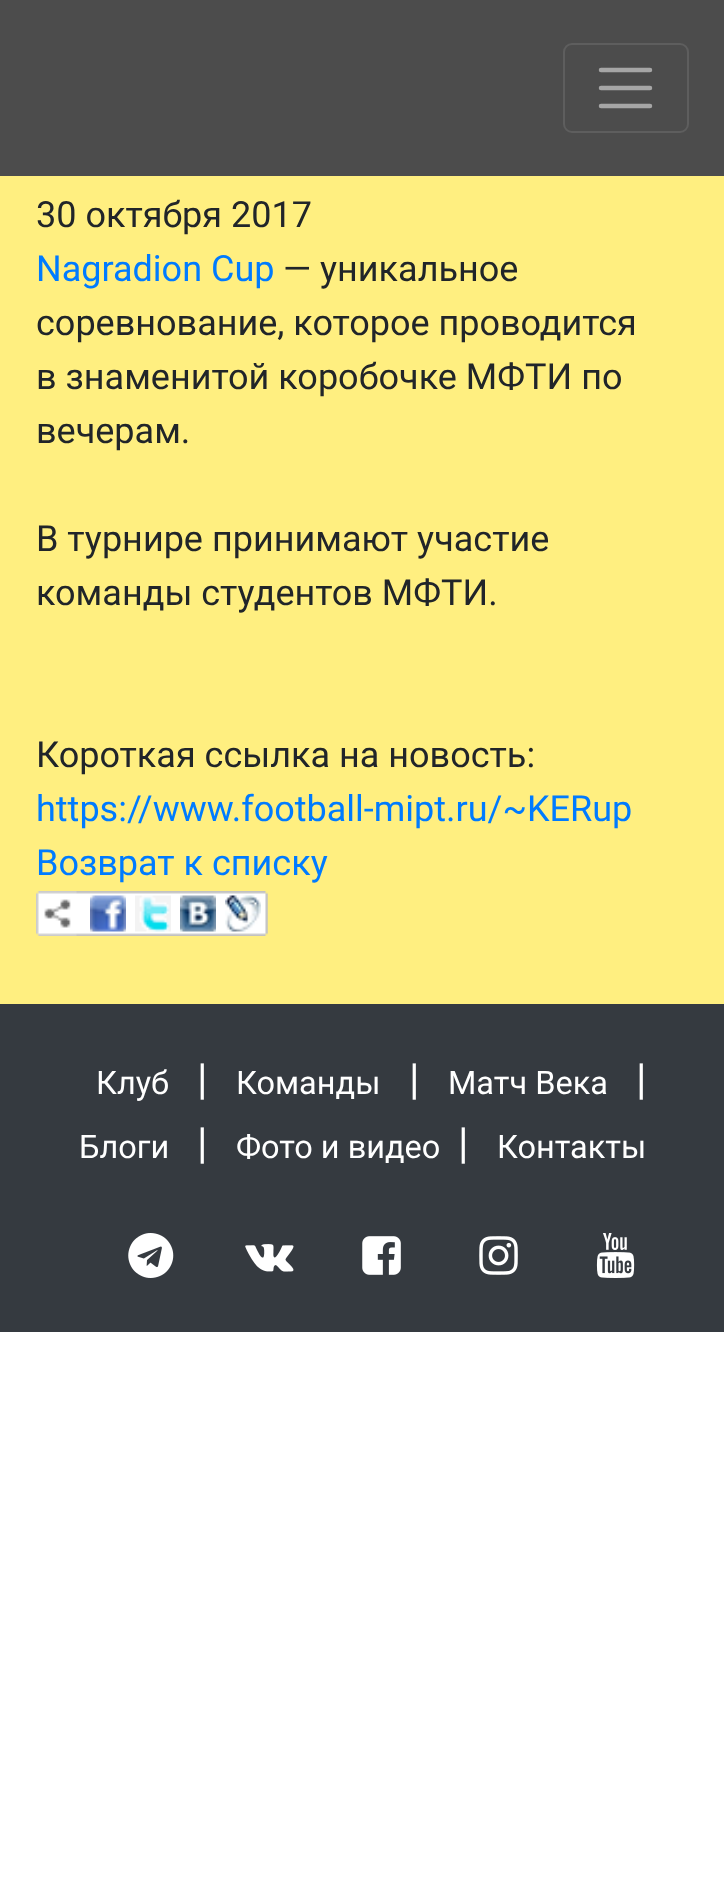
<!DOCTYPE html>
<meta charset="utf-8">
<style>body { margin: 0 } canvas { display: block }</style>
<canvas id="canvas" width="724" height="1886"></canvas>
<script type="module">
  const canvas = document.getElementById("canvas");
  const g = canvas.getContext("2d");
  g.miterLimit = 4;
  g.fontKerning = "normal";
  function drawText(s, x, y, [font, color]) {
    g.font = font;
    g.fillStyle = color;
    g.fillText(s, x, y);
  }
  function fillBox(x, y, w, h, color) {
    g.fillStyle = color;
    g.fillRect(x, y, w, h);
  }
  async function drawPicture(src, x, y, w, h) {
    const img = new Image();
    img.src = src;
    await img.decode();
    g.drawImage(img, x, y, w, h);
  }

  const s1 = ["36px Roboto", "#212529"];
  const s2 = ["36px Roboto", "#007BFF"];
  const s3 = ["32.5px Roboto", "#FFFFFF"];
  const s4 = ["43px Roboto", "#FFFFFF"];

  fillBox(0, 0, 724, 1886, "#FFFFFF");
  fillBox(0, 0, 724, 176, "#4C4C4C");
  g.beginPath();
  g.roundRect(564, 44, 124, 88, 8);
  g.strokeStyle = "#5E5E5E";
  g.lineWidth = 2;
  g.stroke();
  g.beginPath();
  g.moveTo(601, 70);
  g.lineTo(650, 70);
  g.moveTo(601, 88);
  g.lineTo(650, 88);
  g.moveTo(601, 106);
  g.lineTo(650, 106);
  g.strokeStyle = "#A6A6A6";
  g.lineWidth = 4.5;
  g.lineCap = "round";
  g.stroke();
  fillBox(0, 176, 724, 828, "#FFEF80");
  drawText("30 октября 2017", 36, 227, s1);
  drawText("Nagradion Cup", 36, 281, s2);
  drawText("— уникальное", 283, 281, s1);
  drawText("соревнование, которое проводится", 36, 335, s1);
  drawText("в знаменитой коробочке МФТИ по", 36, 389, s1);
  drawText("вечерам.", 36, 443, s1);
  drawText("В турнире принимают участие", 36, 551, s1);
  drawText("команды студентов МФТИ.", 36, 605, s1);
  drawText("Короткая ссылка на новость:", 36, 767, s1);
  drawText("https://www.football-mipt.ru/~KERup", 36, 821, s2);
  drawText("Возврат к списку", 36, 875, s2);
  await drawPicture("pic1.png", 36, 891, 41, 45);
  await drawPicture("pic2.png", 76, 891, 192, 45);
  await drawPicture("pic3.png", 90, 895, 36, 37);
  await drawPicture("pic4.png", 135, 895, 36, 37);
  await drawPicture("pic5.png", 180, 895, 36, 37);
  await drawPicture("pic6.png", 225, 895, 36, 37);
  fillBox(0, 1004, 724, 328, "#353A40");
  drawText("Клуб", 96, 1094, s3);
  drawText("|", 197, 1094, s4);
  drawText("Команды", 236, 1094, s3);
  drawText("|", 409, 1094, s4);
  drawText("Матч Века", 448, 1094, s3);
  drawText("|", 636, 1094, s4);
  drawText("Блоги", 79, 1158, s3);
  drawText("|", 197, 1158, s4);
  drawText("Фото и видео", 236, 1158, s3);
  drawText("|", 458, 1158, s4);
  drawText("Контакты", 497, 1158, s3);
  await drawPicture("pic7.png", 128, 1233, 46, 45);
  await drawPicture("pic8.png", 245, 1244, 49, 28);
  await drawPicture("pic9.png", 362, 1236, 39, 39);
  await drawPicture("pic10.png", 479, 1236, 39, 39);
  await drawPicture("pic11.png", 596, 1233, 39, 45);
</script>
